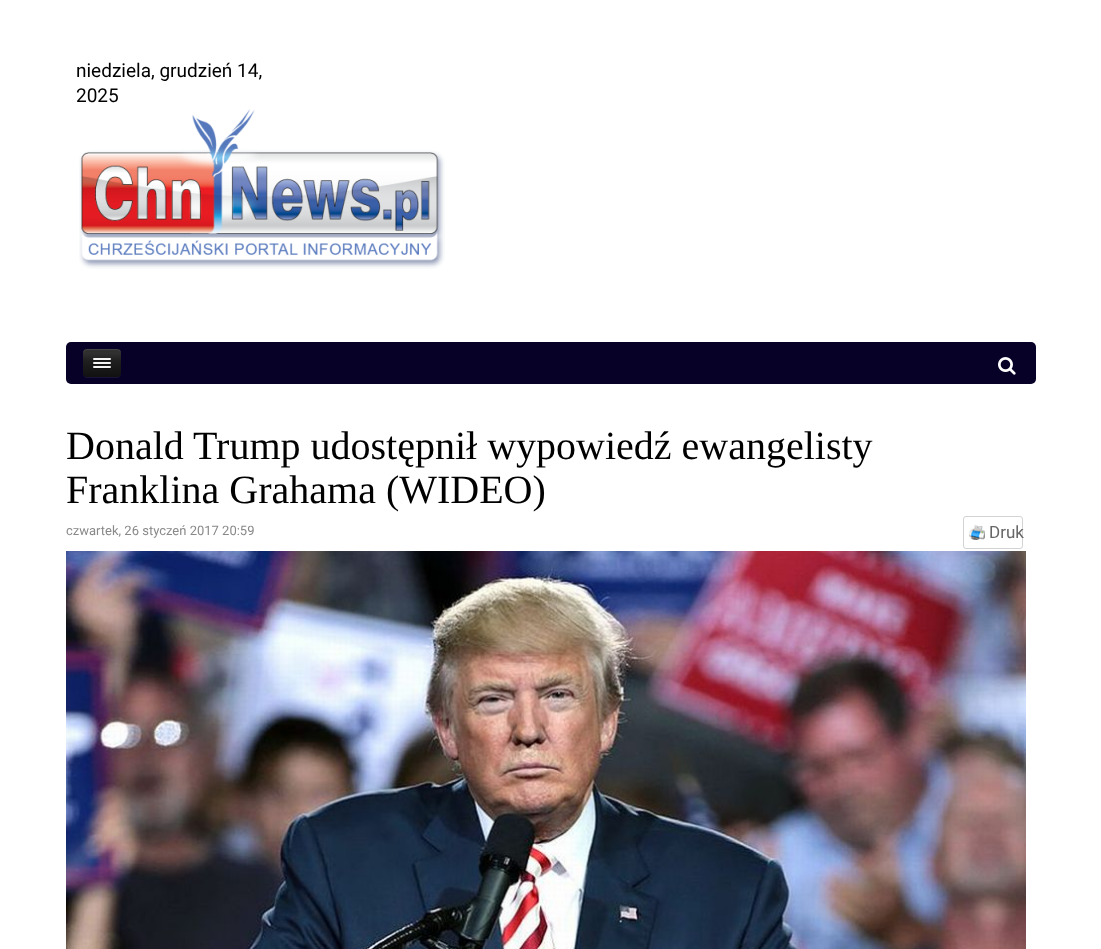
<!DOCTYPE html>
<meta charset="utf-8">
<style>body { margin: 0 } canvas { display: block }</style>
<canvas id="canvas" width="1101" height="949"></canvas>
<script type="module">
  const canvas = document.getElementById("canvas");
  const g = canvas.getContext("2d");
  g.miterLimit = 4;
  g.fontKerning = "normal";
  function drawText(s, x, y, [font, color]) {
    g.font = font;
    g.fillStyle = color;
    g.fillText(s, x, y);
  }
  function fillBox(x, y, w, h, color) {
    g.fillStyle = color;
    g.fillRect(x, y, w, h);
  }
  function fillRounded(x, y, w, h, r, color) {
    g.fillStyle = color;
    g.beginPath();
    g.roundRect(x, y, w, h, r);
    g.fill();
  }
  async function drawPicture(src, x, y, w, h) {
    const img = new Image();
    img.src = src;
    await img.decode();
    g.drawImage(img, x, y, w, h);
  }
  let gradient;

  const s1 = ["19px Roboto", "#000000"];
  const s2 = ["40px Liberation Serif", "#000000"];
  const s3 = ["13px Roboto", "#898989"];
  const s4 = ["17px Roboto", "#666666"];

  fillBox(0, 0, 1101, 949, "#FFFFFF");
  drawText("niedziela, grudzień 14,", 76, 77, s1);
  drawText("2025", 76, 102, s1);
  await drawPicture("pic1.png", 79, 109, 366, 160);
  fillRounded(66, 342, 970, 42, 5, "#070027");
  g.fillStyle = "#1A1337";
  g.beginPath();
  g.moveTo(83, 373);
  g.bezierCurveTo(83, 379, 87.5, 378, 92, 378);
  g.lineTo(112, 378);
  g.bezierCurveTo(116.5, 378, 121, 379, 121, 373);
  g.bezierCurveTo(121, 375, 119, 377, 117, 377);
  g.lineTo(87, 377);
  g.bezierCurveTo(85, 377, 83, 375, 83, 373);
  g.closePath();
  g.fill();
  gradient = g.createLinearGradient(102, 377, 102, 349);
  gradient.addColorStop(0.01, "#111111");
  gradient.addColorStop(0.57, "#1F1F1F");
  gradient.addColorStop(0.85, "#303030");
  g.fillStyle = gradient;
  g.beginPath();
  g.roundRect(83, 349, 38, 28, 4);
  g.fill();
  g.fillStyle = "rgba(255, 255, 255, 0.1)";
  g.beginPath();
  g.moveTo(87, 350);
  g.lineTo(117, 350);
  g.bezierCurveTo(119, 350, 121, 352, 121, 354);
  g.bezierCurveTo(121, 348, 116.5, 349, 112, 349);
  g.lineTo(92, 349);
  g.bezierCurveTo(87.5, 349, 83, 348, 83, 354);
  g.bezierCurveTo(83, 352, 85, 350, 87, 350);
  g.closePath();
  g.fill();
  g.fillStyle = "#181818";
  g.beginPath();
  g.moveTo(93, 359.5);
  g.bezierCurveTo(92, 361.5, 96.5, 361, 96.5, 361);
  g.lineTo(107.5, 361);
  g.bezierCurveTo(107.5, 361, 112, 361.5, 111, 359.5);
  g.bezierCurveTo(110, 360.5, 103.5, 360, 102, 360);
  g.bezierCurveTo(100.5, 360, 94, 360.5, 93, 359.5);
  g.closePath();
  g.fill();
  fillRounded(93, 358, 18, 2, 1, "#F5F5F5");
  g.fillStyle = "#151515";
  g.beginPath();
  g.moveTo(93, 363.5);
  g.bezierCurveTo(92, 365.5, 96.5, 365, 96.5, 365);
  g.lineTo(107.5, 365);
  g.bezierCurveTo(107.5, 365, 112, 365.5, 111, 363.5);
  g.bezierCurveTo(110, 364.5, 103.5, 364, 102, 364);
  g.bezierCurveTo(100.5, 364, 94, 364.5, 93, 363.5);
  g.closePath();
  g.fill();
  fillRounded(93, 362, 18, 2, 1, "#F5F5F5");
  g.fillStyle = "#121212";
  g.beginPath();
  g.moveTo(93, 367.5);
  g.bezierCurveTo(92, 369.5, 96.5, 369, 96.5, 369);
  g.lineTo(107.5, 369);
  g.bezierCurveTo(107.5, 369, 112, 369.5, 111, 367.5);
  g.bezierCurveTo(110, 368.5, 103.5, 368, 102, 368);
  g.bezierCurveTo(100.5, 368, 94, 368.5, 93, 367.5);
  g.closePath();
  g.fill();
  fillRounded(93, 366, 18, 2, 1, "#F5F5F5");
  await drawPicture("pic2.png", 998, 357, 18, 18);
  drawText("Donald Trump udostępnił wypowiedź ewangelisty", 66, 459, s2);
  drawText("Franklina Grahama (WIDEO)", 66, 503, s2);
  drawText("czwartek, 26 styczeń 2017 20:59", 66, 535, s3);
  await drawPicture("pic3.png", 969, 525, 16, 15);
  g.beginPath();
  g.roundRect(963.5, 516.5, 59, 32, 2.5);
  g.strokeStyle = "#D3D3D3";
  g.stroke();
  drawText("Druk", 989, 538, s4);
  await drawPicture("pic4.png", 66, 551, 960, 398);
</script>
